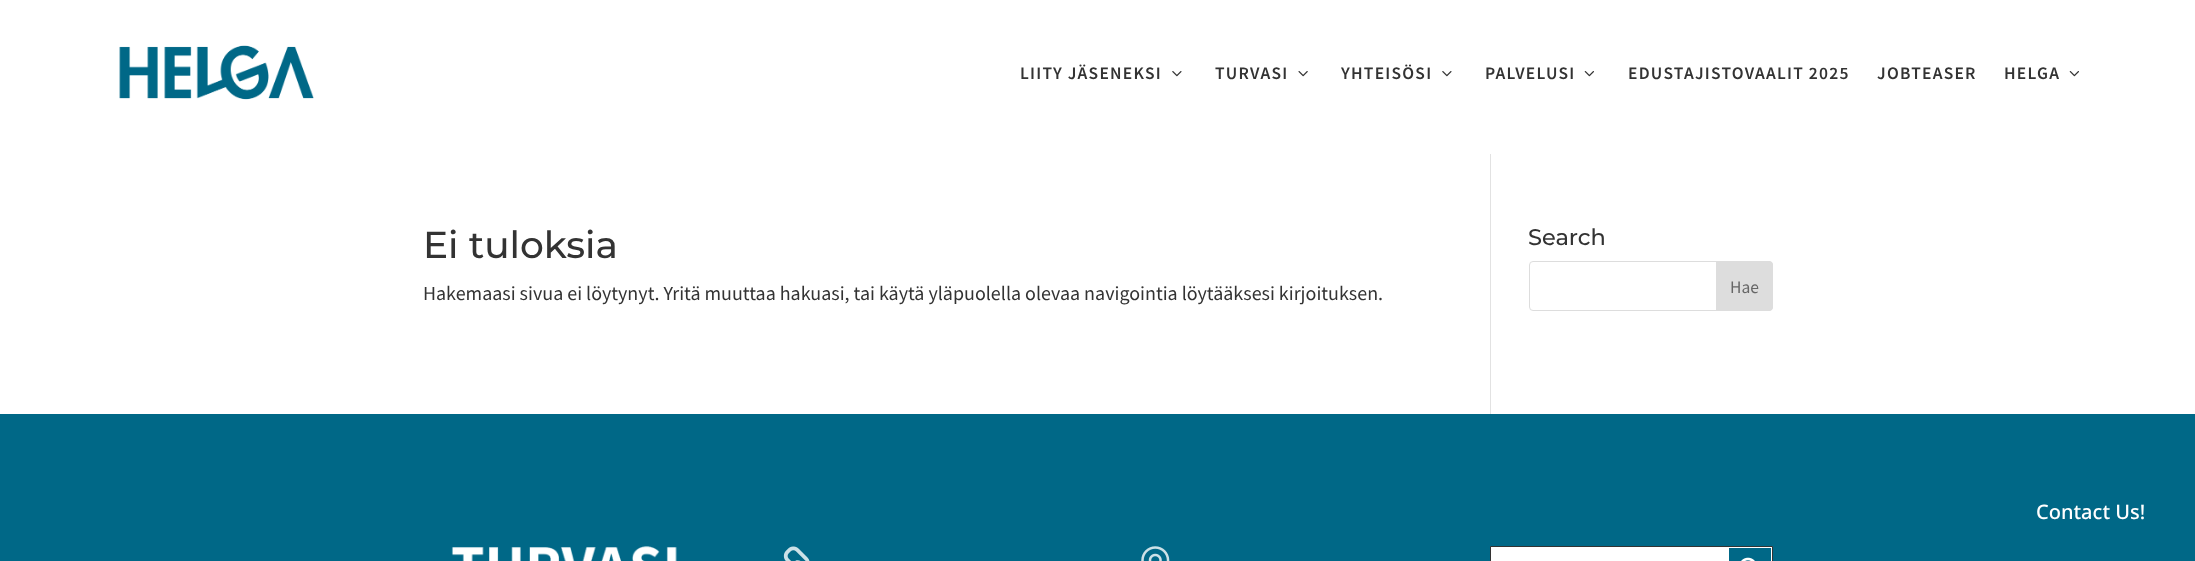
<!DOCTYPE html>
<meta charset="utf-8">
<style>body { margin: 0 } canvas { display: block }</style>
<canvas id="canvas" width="2195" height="561"></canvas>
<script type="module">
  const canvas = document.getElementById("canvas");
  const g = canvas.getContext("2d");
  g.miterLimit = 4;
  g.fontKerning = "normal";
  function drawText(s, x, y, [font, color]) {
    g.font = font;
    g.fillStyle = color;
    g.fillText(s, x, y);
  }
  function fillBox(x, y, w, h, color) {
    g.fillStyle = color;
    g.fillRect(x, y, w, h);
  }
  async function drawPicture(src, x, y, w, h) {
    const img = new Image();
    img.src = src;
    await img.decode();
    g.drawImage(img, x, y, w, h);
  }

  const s1 = ["600 17.5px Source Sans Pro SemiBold", "#333333"];
  const s2 = ["100 37.5px Montserrat", "#333333"];
  const s3 = ["20px Source Sans Pro", "#333333"];
  const s4 = ["100 22.5px Montserrat", "#333333"];
  const s5 = ["17.5px Source Sans Pro", "#666666"];
  const s6 = ["500 20px Noto Sans", "#FFFFFF"];

  fillBox(0, 0, 2195, 561, "#FFFFFF");
  await drawPicture("pic1.png", 119, 45, 195, 55);
  g.letterSpacing = "1.25px";
  drawText("LIITY JÄSENEKSI", 1020, 79, s1);
  await drawPicture("pic2.png", 1172, 71, 10, 6);
  drawText("TURVASI", 1215, 79, s1);
  await drawPicture("pic3.png", 1298, 71, 10, 6);
  drawText("YHTEISÖSI", 1341, 79, s1);
  await drawPicture("pic2.png", 1442, 71, 10, 6);
  drawText("PALVELUSI", 1485, 79, s1);
  await drawPicture("pic4.png", 1584, 71, 10, 6);
  drawText("EDUSTAJISTOVAALIT 2025", 1628, 79, s1);
  drawText("JOBTEASER", 1877, 79, s1);
  drawText("HELGA", 2004, 79, s1);
  await drawPicture("pic4.png", 2069, 71, 10, 6);
  fillBox(1490, 154, 1, 260, "#E2E2E2");
  g.letterSpacing = "0px";
  drawText("Ei tuloksia", 423, 258, s2);
  drawText("Hakemaasi sivua ei löytynyt. Yritä muuttaa hakuasi, tai käytä yläpuolella olevaa navigointia löytääksesi kirjoituksen.", 423, 300, s3);
  drawText("Search", 1528, 245, s4);
  g.beginPath();
  g.roundRect(1529.5, 261.5, 243, 49, 3.5);
  g.strokeStyle = "#DDDDDD";
  g.stroke();
  g.fillStyle = "#DDDDDD";
  g.beginPath();
  g.roundRect(1716.5, 261.5, 56, 49, [0, 3.5, 3.5, 0]);
  g.fill();
  g.stroke();
  drawText("Hae", 1730, 293, s5);
  fillBox(0, 414, 2195, 147, "#006887");
  await drawPicture("pic5.png", 451, 546, 226, 15);
  await drawPicture("pic6.png", 783, 546, 27, 15);
  await drawPicture("pic7.png", 1141, 546, 29, 15);
  g.fillStyle = "#FFFFFF";
  g.beginPath();
  g.rect(1490.5, 546.5, 282, 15);
  g.fill();
  g.strokeStyle = "#333333";
  g.stroke();
  fillBox(1729, 548, 42, 13, "#006887");
  await drawPicture("pic8.png", 1741, 557, 14, 4);
  drawText("Contact Us!", 2036, 519, s6);
</script>
